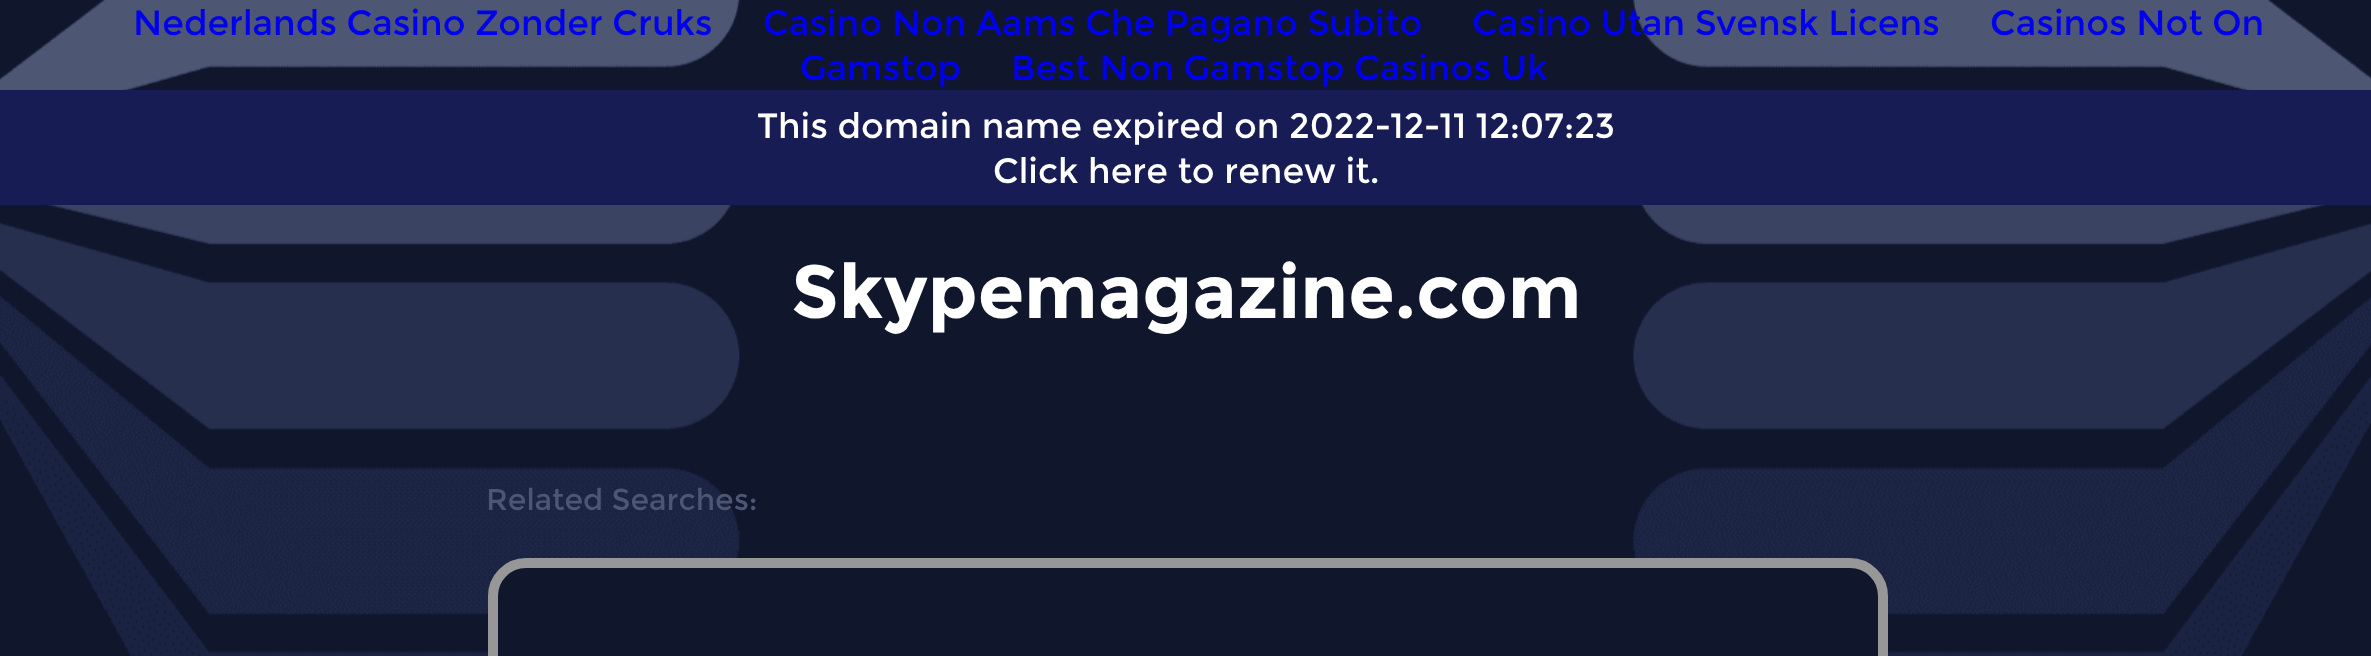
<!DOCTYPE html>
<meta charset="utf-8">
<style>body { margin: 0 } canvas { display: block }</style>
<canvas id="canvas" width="2371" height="656"></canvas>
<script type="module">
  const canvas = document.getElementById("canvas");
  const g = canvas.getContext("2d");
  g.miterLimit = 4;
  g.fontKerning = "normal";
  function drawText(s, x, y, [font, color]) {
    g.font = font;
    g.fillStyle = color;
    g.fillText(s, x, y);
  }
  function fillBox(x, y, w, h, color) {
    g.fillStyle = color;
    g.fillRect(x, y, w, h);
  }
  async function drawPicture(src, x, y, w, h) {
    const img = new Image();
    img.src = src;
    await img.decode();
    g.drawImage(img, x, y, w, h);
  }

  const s1 = ["35px Montserrat", "#0000EE"];
  const s2 = ["35px Montserrat", "#FFFFFF"];
  const s3 = ["bold 75px Montserrat", "#FFFFFF"];
  const s4 = ["30px Montserrat", "#4D5673"];

  fillBox(0, 0, 2371, 656, "#FFFFFF");
  await drawPicture("pic1.png", 0, 0, 2371, 656);
  drawText("Nederlands Casino Zonder Cruks", 133, 35, s1);
  drawText("Casino Non Aams Che Pagano Subito", 763, 35, s1);
  drawText("Casino Utan Svensk Licens", 1472, 35, s1);
  drawText("Casinos Not On", 1990, 35, s1);
  drawText("Gamstop", 800, 80, s1);
  drawText("Best Non Gamstop Casinos Uk", 1011, 80, s1);
  fillBox(0, 90, 2371, 115, "#181C55");
  drawText("This domain name expired on 2022-12-11 12:07:23", 757, 138, s2);
  drawText("Click here to renew it.", 993, 183, s2);
  drawText("Skypemagazine.com", 791, 318, s3);
  drawText("Related Searches:", 486, 510, s4);
  g.fillStyle = "#10162C";
  g.beginPath();
  g.roundRect(493, 563, 1390, 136, 33);
  g.fill();
  g.strokeStyle = "#979797";
  g.lineWidth = 10;
  g.stroke();
</script>
